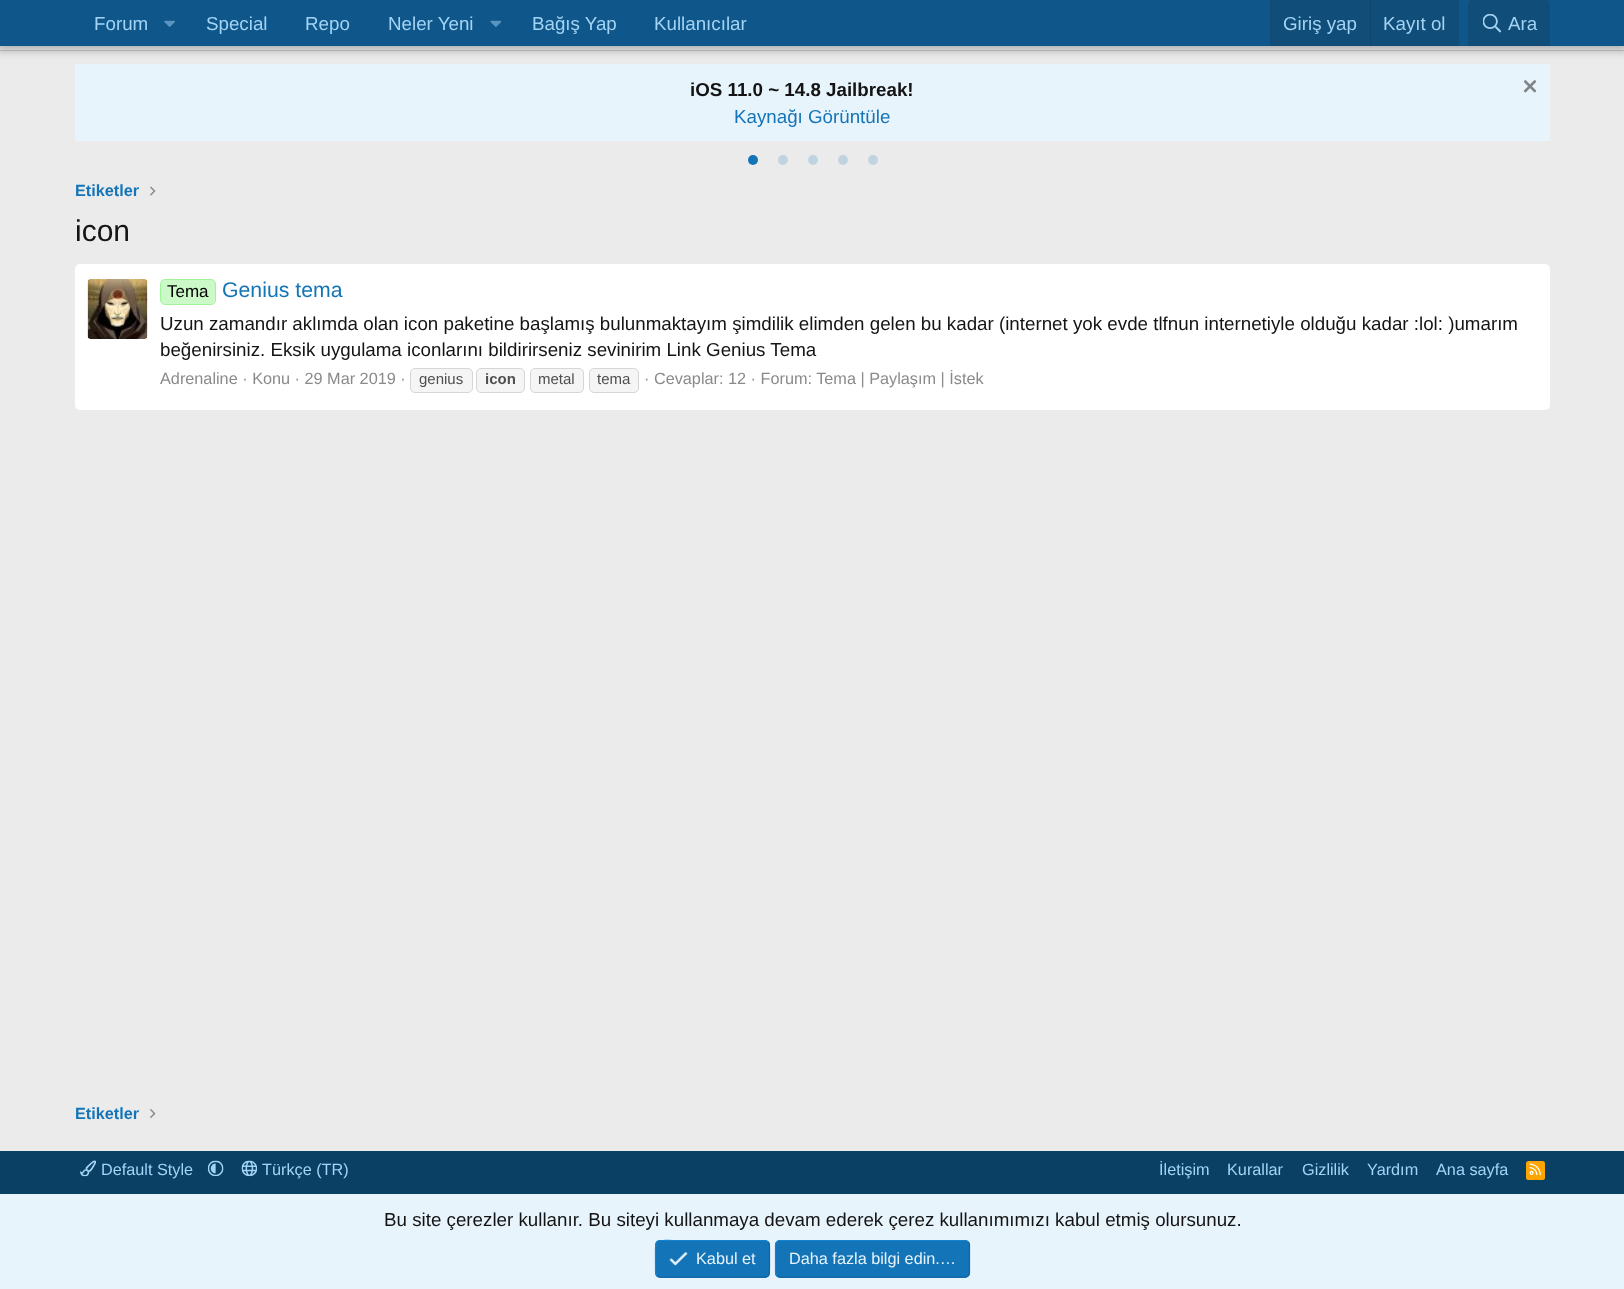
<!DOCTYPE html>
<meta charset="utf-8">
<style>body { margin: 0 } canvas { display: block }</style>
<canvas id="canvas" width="1624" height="1289"></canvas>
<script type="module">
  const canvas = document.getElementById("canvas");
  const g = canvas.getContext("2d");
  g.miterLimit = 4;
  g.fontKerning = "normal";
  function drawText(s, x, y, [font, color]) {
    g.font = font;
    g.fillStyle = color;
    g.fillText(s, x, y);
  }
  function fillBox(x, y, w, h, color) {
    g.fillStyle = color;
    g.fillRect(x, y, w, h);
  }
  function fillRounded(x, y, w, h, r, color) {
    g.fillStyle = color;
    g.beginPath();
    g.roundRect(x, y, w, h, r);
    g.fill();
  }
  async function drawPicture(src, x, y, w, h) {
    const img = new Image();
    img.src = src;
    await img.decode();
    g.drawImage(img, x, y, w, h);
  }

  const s1 = ["18.75px Liberation Sans", "#A3D4F5"];
  const s2 = ["bold 18.75px Liberation Sans", "#141414"];
  const s3 = ["18.75px Liberation Sans", "#1474B8"];
  const s4 = ["bold 16.25px Liberation Sans", "#1474B8"];
  const s5 = ["30px Liberation Sans", "#141414"];
  const s6 = ["17px Liberation Sans", "#000000"];
  const s7 = ["21.25px Liberation Sans", "#1474B8"];
  const s8 = ["18.75px Liberation Sans", "#141414"];
  const s9 = ["16.25px Liberation Sans", "#8A8A8A"];
  const s10 = ["15px Liberation Sans", "#4F4F4F"];
  const s11 = ["bold 15px Liberation Sans", "#4F4F4F"];
  const s12 = ["16.25px Liberation Sans", "#A3D4F5"];
  const s13 = ["16.25px Liberation Sans", "#E8F4FC"];

  fillBox(0, 0, 1624, 1289, "#EBEBEB");
  fillBox(0, 46, 1624, 4, "#F5F5F5");
  fillBox(0, 50, 1624, 1, "#CCCCCC");
  fillBox(75, 64, 1475, 77, "#E8F4FC");
  g.fillStyle = "rgba(0, 0, 0, 0.3)";
  g.filter = "blur(5px)";
  g.beginPath();
  g.rect(-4, -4, 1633, 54);
  g.fill();
  g.filter = "none";
  fillBox(0, 0, 1624, 46, "#0F578A");
  drawText("Forum", 94, 30, s1);
  await drawPicture("pic1.png", 164, 20, 11, 7);
  drawText("Special", 206, 30, s1);
  drawText("Repo", 305, 30, s1);
  drawText("Neler Yeni", 388, 30, s1);
  await drawPicture("pic2.png", 490, 20, 11, 7);
  drawText("Bağış Yap", 532, 30, s1);
  drawText("Kullanıcılar", 654, 30, s1);
  fillBox(1270, 0, 189, 46, "#104D78");
  drawText("Giriş yap", 1283, 30, s1);
  fillBox(1370, 0, 1, 46, "#114469");
  drawText("Kayıt ol", 1383, 30, s1);
  g.fillStyle = "#104D78";
  g.beginPath();
  g.roundRect(1468, 0, 82, 46, [5, 5, 0, 0]);
  g.fill();
  await drawPicture("pic3.png", 1483, 14, 18, 19);
  drawText("Ara", 1508, 30, s1);
  drawText("iOS 11.0 ~ 14.8 Jailbreak!", 690, 96, s2);
  drawText("Kaynağı Görüntüle", 734, 123, s3);
  await drawPicture("pic4.png", 1524, 80, 12, 13);
  g.beginPath();
  g.arc(753, 160, 5, 0, Math.PI * 2);
  g.fill();
  g.fillStyle = "#C0D3E1";
  g.beginPath();
  g.arc(783, 160, 5, 0, Math.PI * 2);
  g.fill();
  g.beginPath();
  g.arc(813, 160, 5, 0, Math.PI * 2);
  g.fill();
  g.beginPath();
  g.arc(843, 160, 5, 0, Math.PI * 2);
  g.fill();
  g.beginPath();
  g.arc(873, 160, 5, 0, Math.PI * 2);
  g.fill();
  drawText("Etiketler", 75, 196, s4);
  await drawPicture("pic5.png", 150, 186, 6, 10);
  drawText("icon", 75, 241, s5);
  fillRounded(75, 264, 1475, 146, 5, "#FFFFFF");
  await drawPicture("pic6.png", 87, 279, 61, 60);
  g.fillStyle = "#CCF9C8";
  g.beginPath();
  g.roundRect(160.5, 279.5, 55, 25, 4.5);
  g.fill();
  g.strokeStyle = "#A2F49A";
  g.stroke();
  drawText("Tema", 167, 297, s6);
  drawText("Genius tema", 222, 297, s7);
  drawText("Uzun zamandır aklımda olan icon paketine başlamış bulunmaktayım şimdilik elimden gelen bu kadar (internet yok evde tlfnun internetiyle olduğu kadar :lol: )umarım", 160, 330, s8);
  drawText("beğenirsiniz. Eksik uygulama iconlarını bildirirseniz sevinirim Link Genius Tema", 160, 356, s8);
  drawText("Adrenaline · Konu · 29 Mar 2019 ·", 160, 384, s9);
  g.fillStyle = "#F5F5F5";
  g.beginPath();
  g.roundRect(410.5, 368.5, 62, 24, 4.5);
  g.fill();
  g.strokeStyle = "#D6D6D6";
  g.stroke();
  drawText("genius", 419, 384, s10);
  g.fillStyle = "#F5F5F5";
  g.beginPath();
  g.roundRect(476.5, 368.5, 48, 24, 4.5);
  g.fill();
  g.stroke();
  drawText("icon", 485, 384, s11);
  g.fillStyle = "#F5F5F5";
  g.beginPath();
  g.roundRect(530.5, 368.5, 53, 24, 4.5);
  g.fill();
  g.stroke();
  drawText("metal", 538, 384, s10);
  g.fillStyle = "#F5F5F5";
  g.beginPath();
  g.roundRect(589.5, 368.5, 49, 24, 4.5);
  g.fill();
  g.stroke();
  drawText("tema", 597, 384, s10);
  drawText("· Cevaplar: 12 · Forum: Tema | Paylaşım | İstek", 644, 384, s9);
  drawText("Etiketler", 75, 1119, s4);
  await drawPicture("pic7.png", 150, 1109, 6, 9);
  fillBox(0, 1151, 1624, 43, "#0B4065");
  await drawPicture("pic8.png", 80, 1160, 16, 17);
  drawText("Default Style", 101, 1175, s12);
  await drawPicture("pic9.png", 207, 1160, 17, 17);
  await drawPicture("pic10.png", 241, 1160, 17, 17);
  drawText("Türkçe (TR)", 262, 1175, s12);
  drawText("İletişim", 1159, 1175, s12);
  drawText("Kurallar", 1227, 1175, s12);
  drawText("Gizlilik", 1302, 1175, s12);
  drawText("Yardım", 1367, 1175, s12);
  drawText("Ana sayfa", 1436, 1175, s12);
  fillRounded(1526, 1161, 19, 19, 2.5, "#FFA500");
  await drawPicture("pic11.png", 1529, 1163, 12, 12);
  fillBox(0, 1194, 1624, 95, "#E8F4FC");
  drawText("Bu site çerezler kullanır. Bu siteyi kullanmaya devam ederek çerez kullanımımızı kabul etmiş olursunuz.", 384, 1226, s8);
  fillRounded(655, 1240, 115, 38, 5, "#1474B8");
  g.beginPath();
  g.moveTo(768, 1242);
  g.bezierCurveTo(770, 1244, 769.5, 1247, 769.5, 1249.5);
  g.lineTo(769.5, 1259);
  g.bezierCurveTo(769.5, 1281, 772, 1277, 747.5, 1277);
  g.lineTo(660, 1277);
  g.lineTo(657, 1275.5);
  g.strokeStyle = "#1265A1";
  g.lineWidth = 1.2;
  g.stroke();
  g.beginPath();
  g.moveTo(657, 1275.5);
  g.bezierCurveTo(655, 1273.5, 655.5, 1270.5, 655.5, 1268);
  g.lineTo(655.5, 1259);
  g.bezierCurveTo(655.5, 1236.5, 653, 1240.5, 677.5, 1240.5);
  g.lineTo(765, 1240.5);
  g.lineTo(768, 1242);
  g.strokeStyle = "#1782CF";
  g.stroke();
  await drawPicture("pic12.png", 669, 1252, 19, 14);
  drawText("Kabul et", 696, 1264, s13);
  fillRounded(775, 1240, 195, 38, 5, "#1474B8");
  g.beginPath();
  g.moveTo(968, 1242);
  g.bezierCurveTo(969, 1242.5, 969.5, 1244, 969.5, 1245);
  g.lineTo(969.5, 1272.5);
  g.bezierCurveTo(969.5, 1273.5, 969, 1275, 968, 1275.5);
  g.bezierCurveTo(967.5, 1276.5, 966, 1277, 965, 1277);
  g.lineTo(780, 1277);
  g.bezierCurveTo(779, 1277, 777.5, 1276.5, 777, 1275.5);
  g.strokeStyle = "#1265A1";
  g.stroke();
  g.beginPath();
  g.moveTo(777, 1275.5);
  g.bezierCurveTo(776, 1275, 775.5, 1273.5, 775.5, 1272.5);
  g.lineTo(775.5, 1245);
  g.bezierCurveTo(775.5, 1244, 776, 1242.5, 777, 1242);
  g.bezierCurveTo(777.5, 1241, 779, 1240.5, 780, 1240.5);
  g.lineTo(965, 1240.5);
  g.bezierCurveTo(966, 1240.5, 967.5, 1241, 968, 1242);
  g.strokeStyle = "#1782CF";
  g.stroke();
  drawText("Daha fazla bilgi edin.…", 789, 1264, s13);
</script>
